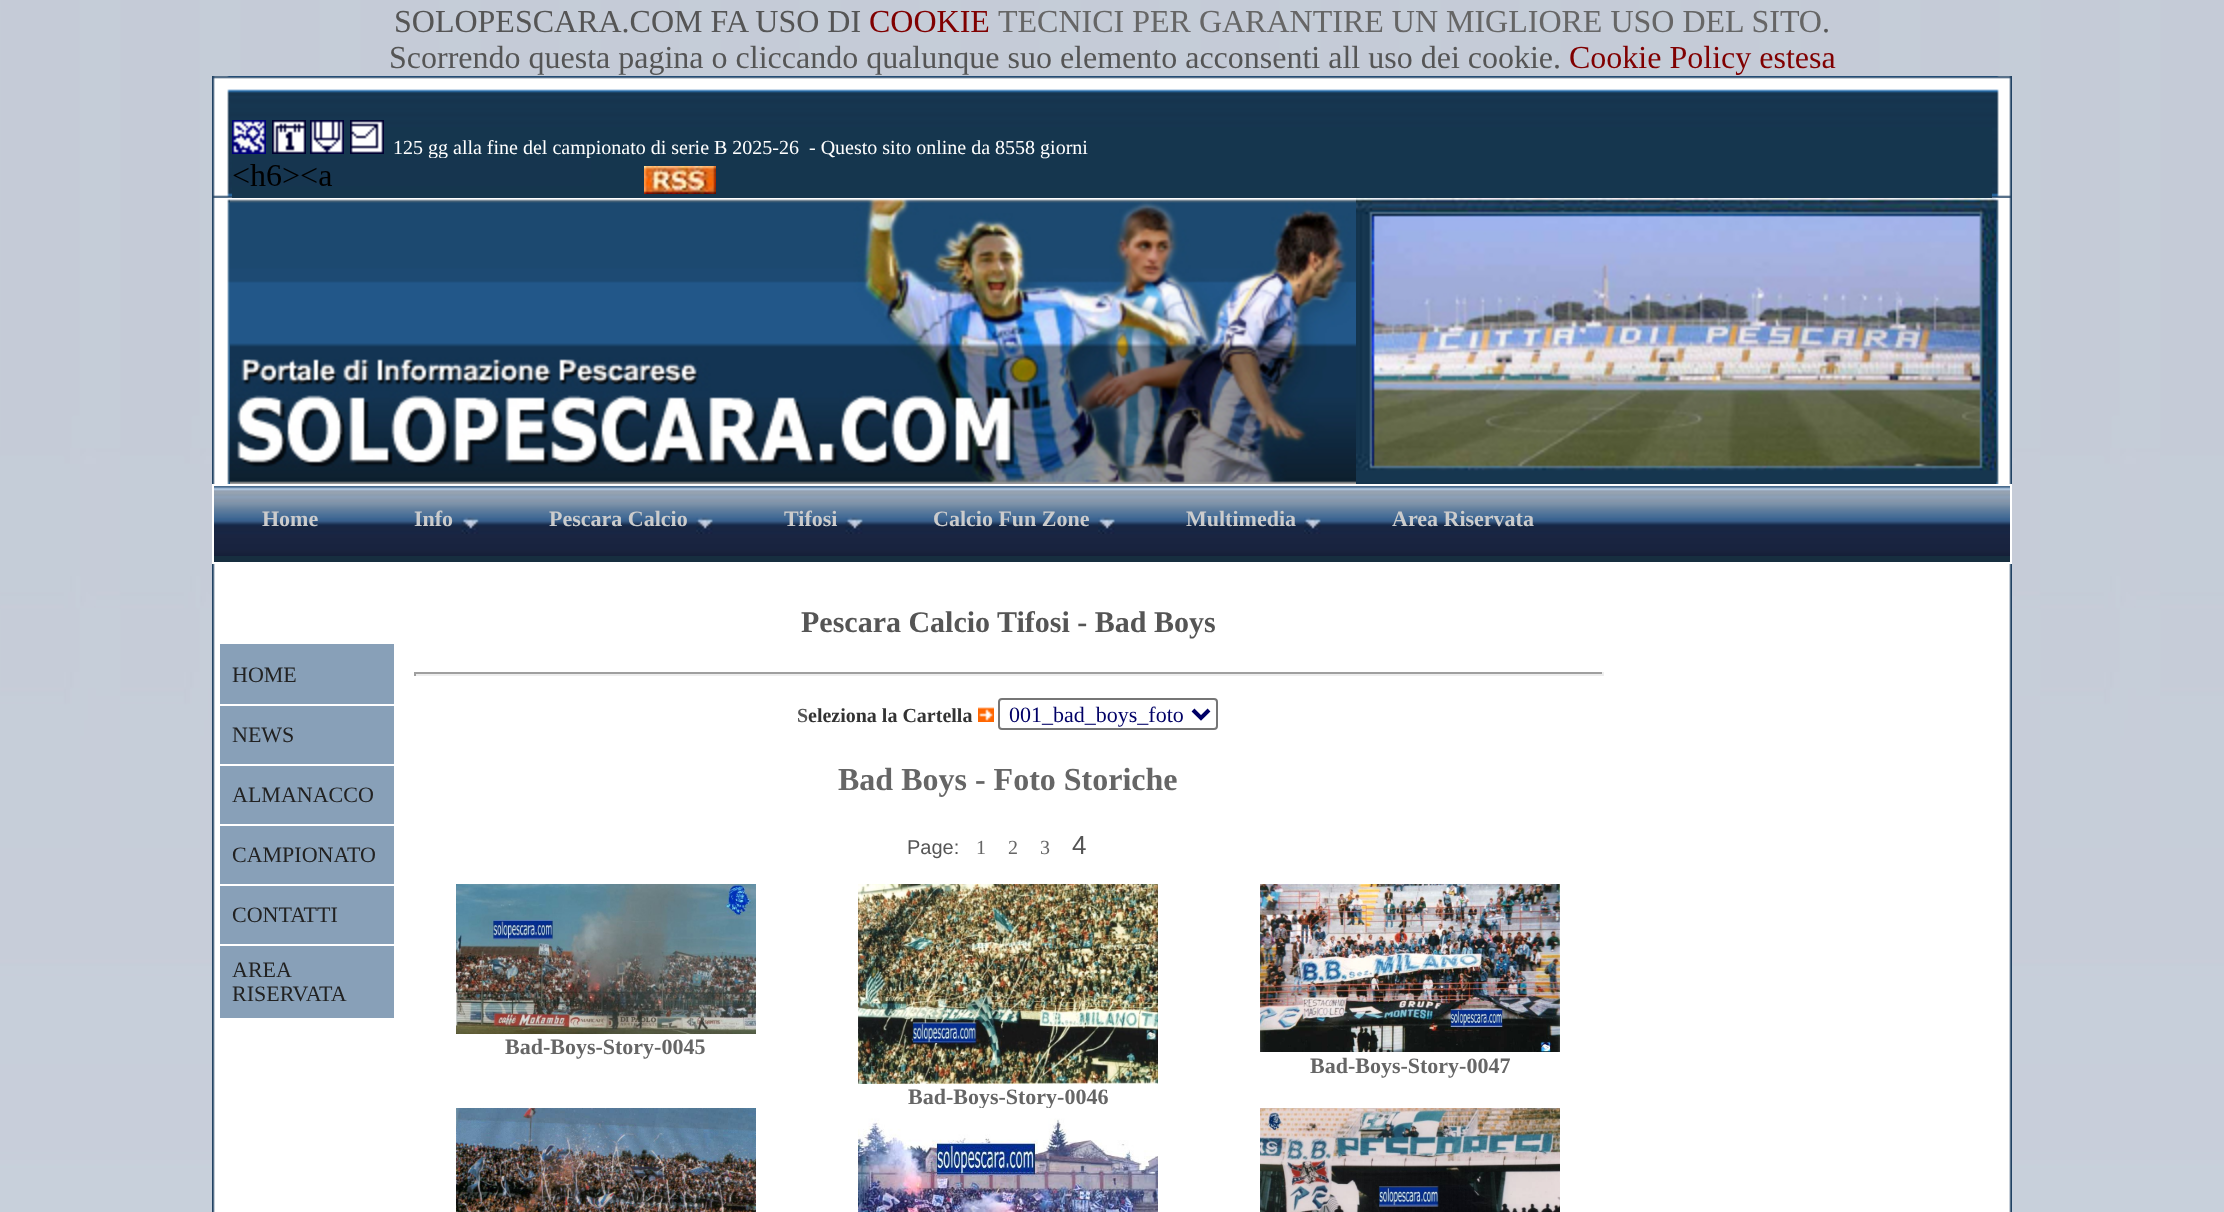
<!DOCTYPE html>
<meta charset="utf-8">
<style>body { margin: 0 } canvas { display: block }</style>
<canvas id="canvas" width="2224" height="1212"></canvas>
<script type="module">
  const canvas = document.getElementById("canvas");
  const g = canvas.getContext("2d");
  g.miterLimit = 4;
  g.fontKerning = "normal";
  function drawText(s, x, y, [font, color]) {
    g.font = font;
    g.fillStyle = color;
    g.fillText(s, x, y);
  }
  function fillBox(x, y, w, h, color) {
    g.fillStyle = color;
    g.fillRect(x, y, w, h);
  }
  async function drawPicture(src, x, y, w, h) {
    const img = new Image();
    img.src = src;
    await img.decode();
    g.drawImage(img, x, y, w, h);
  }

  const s1 = ["32px Liberation Serif", "#555555"];
  const s2 = ["32px Liberation Serif", "#800000"];
  const s3 = ["32px Liberation Serif", "#666666"];
  const s4 = ["20px Liberation Serif", "#FFFFFF"];
  const s5 = ["bold 22px Liberation Serif", "#CCCCCC"];
  const s6 = ["22px Liberation Serif", "#222222"];
  const s7 = ["bold 30px Liberation Serif", "#555555"];
  const s8 = ["22px Liberation Serif", "#000066"];
  const s9 = ["bold 32px Liberation Serif", "#666666"];
  const s10 = ["bold 20px Liberation Serif", "#555555"];
  const s11 = ["bold 20px Liberation Serif", "#333333"];
  const s12 = ["20px Liberation Sans", "#555555"];
  const s13 = ["20px Liberation Serif", "#666666"];
  const s14 = ["26px Liberation Sans", "#555555"];
  const s15 = ["bold 22px Liberation Serif", "#666666"];

  fillBox(0, 0, 2224, 1212, "#FFFFFF");
  await drawPicture("pic1.png", 0, 0, 2224, 1212);
  drawText("SOLOPESCARA.COM FA USO DI", 394, 32, s1);
  drawText("COOKIE", 869, 32, s2);
  drawText("TECNICI PER GARANTIRE UN MIGLIORE USO DEL SITO", 998, 32, s3);
  drawText(".", 1822, 32, s1);
  drawText("Scorrendo questa pagina o cliccando qualunque suo elemento acconsenti all uso dei cookie.", 389, 68, s1);
  drawText("Cookie Policy estesa", 1569, 68, s2);
  fillBox(212, 484, 1800, 80, "#FFFFFF");
  await drawPicture("pic2.png", 212, 76, 1800, 122);
  fillBox(232, 127, 1760, 71, "#15364E");
  await drawPicture("pic3.png", 232, 120, 34, 34);
  await drawPicture("pic4.png", 272, 120, 34, 34);
  await drawPicture("pic5.png", 310, 120, 34, 34);
  await drawPicture("pic6.png", 350, 120, 34, 34);
  drawText("125 gg alla fine del campionato di serie B 2025-26", 393, 154, s4);
  drawText("- Questo sito online da 8558 giorni", 809, 154, s4);
  await drawPicture("pic7.png", 233, 158, 358, 28);
  await drawPicture("pic8.png", 644, 166, 72, 28);
  await drawPicture("pic9.png", 212, 198, 1800, 286);
  await drawPicture("pic10.png", 230, 199, 1126, 285);
  await drawPicture("pic11.png", 1356, 198, 640, 286);
  fillBox(214, 556, 1796, 6, "#172E3F");
  await drawPicture("pic12.png", 214, 486, 1796, 70);
  drawText("Home", 262, 526, s5);
  await drawPicture("pic13.png", 461, 517, 18, 17);
  drawText("Info", 414, 526, s5);
  await drawPicture("pic14.png", 696, 517, 17, 17);
  drawText("Pescara Calcio", 549, 526, s5);
  await drawPicture("pic15.png", 845, 517, 18, 17);
  drawText("Tifosi", 784, 526, s5);
  await drawPicture("pic16.png", 1098, 517, 17, 17);
  drawText("Calcio Fun Zone", 933, 526, s5);
  await drawPicture("pic17.png", 1304, 517, 17, 17);
  drawText("Multimedia", 1186, 526, s5);
  drawText("Area Riservata", 1392, 526, s5);
  fillBox(213, 564, 1798, 648, "#FFFFFF");
  await drawPicture("pic18.png", 212, 564, 1800, 648);
  fillBox(220, 644, 174, 60, "#88A0B8");
  drawText("HOME", 232, 682, s6);
  fillBox(220, 706, 174, 58, "#88A0B8");
  drawText("NEWS", 232, 742, s6);
  fillBox(220, 766, 174, 58, "#88A0B8");
  drawText("ALMANACCO", 232, 802, s6);
  fillBox(220, 826, 174, 58, "#88A0B8");
  drawText("CAMPIONATO", 232, 862, s6);
  fillBox(220, 886, 174, 58, "#88A0B8");
  drawText("CONTATTI", 232, 922, s6);
  fillBox(220, 946, 174, 72, "#88A0B8");
  drawText("AREA", 232, 977, s6);
  drawText("RISERVATA", 232, 1001, s6);
  drawText("Pescara Calcio Tifosi - Bad Boys", 801, 632, s7);
  fillBox(414, 672, 1190, 2, "#9F9F9F");
  fillBox(1602, 672, 2, 4, "#EEEEEE");
  fillBox(414, 674, 1190, 2, "#EEEEEE");
  fillBox(414, 672, 2, 4, "#9F9F9F");
  g.beginPath();
  g.roundRect(999, 699, 218, 30, 3);
  g.strokeStyle = "#767676";
  g.lineWidth = 2;
  g.stroke();
  g.beginPath();
  g.moveTo(1193, 710);
  g.lineTo(1201, 718);
  g.lineTo(1209, 710);
  g.strokeStyle = "#000066";
  g.lineWidth = 4;
  g.stroke();
  drawText("001_bad_boys_foto", 1009, 722, s8);
  drawText("Bad Boys - Foto Storiche", 838, 790, s9);
  drawText("S", 797, 722, s10);
  drawText("eleziona la Cartella", 808, 722, s11);
  await drawPicture("pic19.png", 978, 707, 16, 15);
  drawText("Page:", 907, 854, s12);
  drawText("1", 976, 854, s13);
  drawText("2", 1008, 854, s13);
  drawText("3", 1040, 854, s13);
  drawText("4", 1072, 854, s14);
  await drawPicture("pic20.png", 456, 884, 300, 150);
  drawText("Bad-Boys-Story-0045", 505, 1054, s15);
  await drawPicture("pic21.png", 1260, 884, 300, 168);
  drawText("Bad-Boys-Story-0047", 1310, 1073, s15);
  await drawPicture("pic22.png", 858, 884, 300, 200);
  drawText("Bad-Boys-Story-0046", 908, 1104, s15);
  await drawPicture("pic23.png", 456, 1108, 300, 104);
  await drawPicture("pic24.png", 858, 1108, 300, 104);
  await drawPicture("pic25.png", 1260, 1108, 300, 104);
</script>
